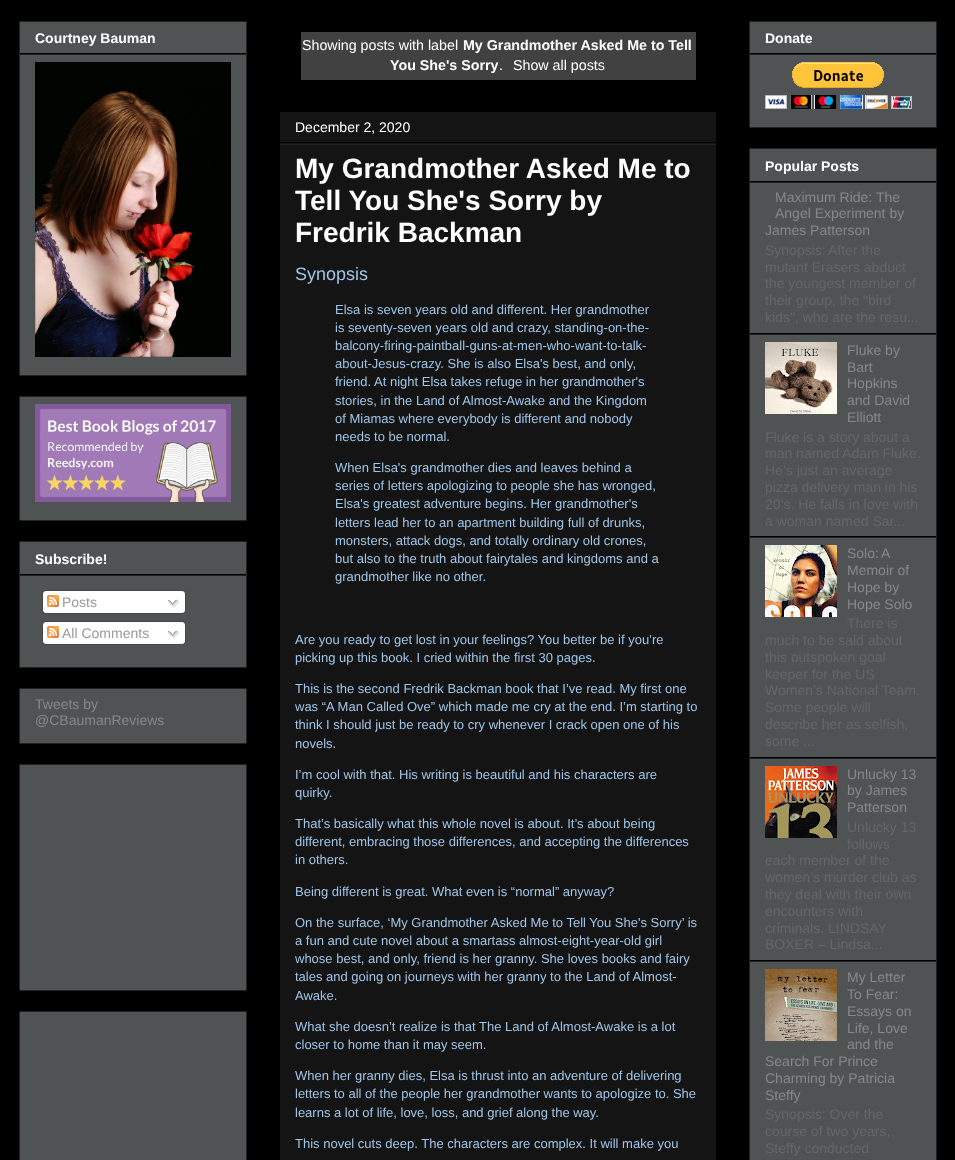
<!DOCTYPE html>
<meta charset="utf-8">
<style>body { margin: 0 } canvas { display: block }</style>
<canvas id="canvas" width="955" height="1160"></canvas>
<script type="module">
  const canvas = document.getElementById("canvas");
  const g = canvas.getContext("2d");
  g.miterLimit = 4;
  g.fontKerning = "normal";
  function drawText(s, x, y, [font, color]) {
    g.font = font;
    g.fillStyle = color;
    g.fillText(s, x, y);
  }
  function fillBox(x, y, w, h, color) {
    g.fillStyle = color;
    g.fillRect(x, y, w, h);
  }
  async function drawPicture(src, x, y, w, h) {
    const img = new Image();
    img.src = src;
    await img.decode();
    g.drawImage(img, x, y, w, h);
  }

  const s1 = ["bold 14px Liberation Sans", "#FFFFFF"];
  const s2 = ["14px Liberation Sans", "#999999"];
  const s3 = ["14px Liberation Sans", "#888888"];
  const s4 = ["14.25px Liberation Sans", "#FFFFFF"];
  const s5 = ["bold 14.25px Liberation Sans", "#FFFFFF"];
  const s6 = ["14px Liberation Sans", "#FFFFFF"];
  const s7 = ["bold 28px Liberation Sans", "#FFFFFF"];
  const s8 = ["18px Liberation Sans", "#9FC5E8"];
  const s9 = ["13px Liberation Sans", "#9FC5E8"];
  const s10 = ["14px Liberation Sans", "#666666"];

  fillBox(0, 0, 955, 1160, "#000000");
  g.fillStyle = "#4F5354";
  g.beginPath();
  g.rect(19.5, 21.5, 227, 354);
  g.fill();
  g.strokeStyle = "#222222";
  g.stroke();
  fillBox(20, 53, 226, 1, "#000000");
  drawText("Courtney Bauman", 35, 43, s1);
  fillBox(20, 54, 226, 1, "#222222");
  await drawPicture("pic1.png", 35, 62, 196, 295);
  g.fillStyle = "#4F5354";
  g.beginPath();
  g.rect(19.5, 396.5, 227, 124);
  g.fill();
  g.stroke();
  await drawPicture("pic2.png", 35, 404, 196, 98);
  g.beginPath();
  g.rect(19.5, 541.5, 227, 126);
  g.fill();
  g.stroke();
  fillBox(20, 574, 226, 1, "#000000");
  drawText("Subscribe!", 35, 564, s1);
  fillBox(20, 575, 226, 1, "#222222");
  await drawPicture("pic3.png", 42, 590, 144, 21);
  await drawPicture("pic4.png", 47, 595, 12, 12);
  drawText("Posts", 62, 607, s2);
  await drawPicture("pic5.png", 167, 599, 13, 9);
  await drawPicture("pic6.png", 42, 611, 144, 3);
  await drawPicture("pic3.png", 42, 621, 144, 21);
  await drawPicture("pic4.png", 47, 626, 12, 12);
  drawText("All Comments", 62, 638, s2);
  await drawPicture("pic5.png", 167, 630, 13, 9);
  await drawPicture("pic6.png", 42, 642, 144, 3);
  g.fillStyle = "#4F5354";
  g.beginPath();
  g.rect(19.5, 688.5, 227, 55);
  g.fill();
  g.stroke();
  drawText("Tweets by", 35, 709, s3);
  drawText("@CBaumanReviews", 35, 725, s3);
  g.fillStyle = "#4F5354";
  g.beginPath();
  g.rect(19.5, 764.5, 227, 226);
  g.fill();
  g.stroke();
  g.beginPath();
  g.rect(19.5, 1011.5, 227, 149);
  g.fill();
  g.stroke();
  fillBox(301, 32, 395, 48, "#414141");
  drawText("Showing posts with label", 302, 50, s4);
  drawText("My Grandmother Asked Me to Tell", 463, 50, s5);
  drawText("You She's Sorry", 390, 70, s5);
  drawText(".", 499, 70, s4);
  drawText("Show all posts", 513, 70, s4);
  fillBox(280, 112, 436, 1048, "#141414");
  fillBox(280, 142, 436, 1, "#000000");
  drawText("December 2, 2020", 295, 132, s6);
  fillBox(280, 144, 436, 1, "#222222");
  drawText("My Grandmother Asked Me to", 295, 178, s7);
  drawText("Tell You She's Sorry by", 295, 210, s7);
  drawText("Fredrik Backman", 295, 242, s7);
  drawText("Synopsis", 295, 280, s8);
  drawText("Elsa is seven years old and different. Her grandmother", 335, 314, s9);
  drawText("is seventy-seven years old and crazy, standing-on-the-", 335, 332, s9);
  drawText("balcony-firing-paintball-guns-at-men-who-want-to-talk-", 335, 350, s9);
  drawText("about-Jesus-crazy. She is also Elsa's best, and only,", 335, 368, s9);
  drawText("friend. At night Elsa takes refuge in her grandmother's", 335, 386, s9);
  drawText("stories, in the Land of Almost-Awake and the Kingdom", 335, 405, s9);
  drawText("of Miamas where everybody is different and nobody", 335, 423, s9);
  drawText("needs to be normal.", 335, 441, s9);
  drawText("When Elsa's grandmother dies and leaves behind a", 335, 472, s9);
  drawText("series of letters apologizing to people she has wronged,", 335, 490, s9);
  drawText("Elsa's greatest adventure begins. Her grandmother's", 335, 508, s9);
  drawText("letters lead her to an apartment building full of drunks,", 335, 527, s9);
  drawText("monsters, attack dogs, and totally ordinary old crones,", 335, 545, s9);
  drawText("but also to the truth about fairytales and kingdoms and a", 335, 563, s9);
  drawText("grandmother like no other.", 335, 581, s9);
  drawText("Are you ready to get lost in your feelings? You better be if you’re", 295, 644, s9);
  drawText("picking up this book. I cried within the first 30 pages.", 295, 662, s9);
  drawText("This is the second Fredrik Backman book that I’ve read. My first one", 295, 693, s9);
  drawText("was “A Man Called Ove” which made me cry at the end. I’m starting to", 295, 711, s9);
  drawText("think I should just be ready to cry whenever I crack open one of his", 295, 729, s9);
  drawText("novels.", 295, 748, s9);
  drawText("I’m cool with that. His writing is beautiful and his characters are", 295, 779, s9);
  drawText("quirky.", 295, 797, s9);
  drawText("That’s basically what this whole novel is about. It’s about being", 295, 828, s9);
  drawText("different, embracing those differences, and accepting the differences", 295, 846, s9);
  drawText("in others.", 295, 864, s9);
  drawText("Being different is great. What even is “normal” anyway?", 295, 896, s9);
  drawText("On the surface, ‘My Grandmother Asked Me to Tell You She's Sorry’ is", 295, 927, s9);
  drawText("a fun and cute novel about a smartass almost-eight-year-old girl", 295, 945, s9);
  drawText("whose best, and only, friend is her granny. She loves books and fairy", 295, 963, s9);
  drawText("tales and going on journeys with her granny to the Land of Almost-", 295, 981, s9);
  drawText("Awake.", 295, 1000, s9);
  drawText("What she doesn’t realize is that The Land of Almost-Awake is a lot", 295, 1031, s9);
  drawText("closer to home than it may seem.", 295, 1049, s9);
  drawText("When her granny dies, Elsa is thrust into an adventure of delivering", 295, 1080, s9);
  drawText("letters to all of the people her grandmother wants to apologize to. She", 295, 1098, s9);
  drawText("learns a lot of life, love, loss, and grief along the way.", 295, 1117, s9);
  drawText("This novel cuts deep. The characters are complex. It will make you", 295, 1148, s9);
  g.fillStyle = "#4F5354";
  g.beginPath();
  g.rect(749.5, 21.5, 187, 106);
  g.fill();
  g.stroke();
  fillBox(750, 53, 186, 1, "#000000");
  drawText("Donate", 765, 43, s1);
  fillBox(750, 54, 186, 1, "#222222");
  await drawPicture("pic7.png", 765, 62, 147, 47);
  g.fillStyle = "#4F5354";
  g.beginPath();
  g.rect(749.5, 148.5, 187, 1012);
  g.fill();
  g.stroke();
  fillBox(750, 181, 186, 1, "#000000");
  drawText("Popular Posts", 765, 171, s1);
  fillBox(750, 182, 186, 1, "#222222");
  fillBox(750, 333, 186, 1, "#000000");
  drawText("Maximum Ride: The", 775, 202, s3);
  drawText("Angel Experiment by", 775, 218, s3);
  drawText("James Patterson", 765, 235, s3);
  drawText("Synopsis:", 765, 255, s10);
  drawText("After the", 828, 255, s10);
  drawText("mutant Erasers abduct", 765, 272, s10);
  drawText("the youngest member of", 765, 288, s10);
  drawText("their group, the \"bird", 765, 305, s10);
  drawText("kids\", who are the resu...", 765, 322, s10);
  fillBox(750, 334, 186, 1, "#222222");
  fillBox(750, 536, 186, 1, "#000000");
  await drawPicture("pic8.png", 765, 342, 72, 72);
  drawText("Fluke by", 847, 355, s3);
  drawText("Bart", 847, 372, s3);
  drawText("Hopkins", 847, 388, s3);
  drawText("and David", 847, 405, s3);
  drawText("Elliott", 847, 422, s3);
  drawText("Fluke is a story about a", 765, 442, s10);
  drawText("man named Adam Fluke.", 765, 458, s10);
  drawText("He’s just an average", 765, 475, s10);
  drawText("pizza delivery man in his", 765, 492, s10);
  drawText("20’s. He falls in love with", 765, 509, s10);
  drawText("a woman named Sar...", 765, 526, s10);
  fillBox(750, 537, 186, 1, "#222222");
  fillBox(750, 757, 186, 1, "#000000");
  await drawPicture("pic9.png", 765, 545, 72, 72);
  g.wordSpacing = "-1px";
  drawText("Solo: A", 847, 558, s3);
  g.wordSpacing = "0px";
  drawText("Memoir of", 847, 575, s3);
  drawText("Hope by", 847, 592, s3);
  drawText("Hope Solo", 847, 609, s3);
  drawText("There is", 847, 628, s10);
  drawText("much to be said about", 765, 645, s10);
  drawText("this outspoken goal", 765, 662, s10);
  drawText("keeper for the US", 765, 679, s10);
  drawText("Women’s National Team.", 765, 695, s10);
  drawText("Some people will", 765, 712, s10);
  drawText("describe her as selfish,", 765, 729, s10);
  drawText("some ...", 765, 746, s10);
  fillBox(750, 758, 186, 1, "#222222");
  fillBox(750, 960, 186, 1, "#000000");
  await drawPicture("pic10.png", 765, 766, 72, 72);
  drawText("Unlucky 13", 847, 779, s3);
  drawText("by James", 847, 795, s3);
  drawText("Patterson", 847, 812, s3);
  drawText("Unlucky 13", 847, 832, s10);
  drawText("follows", 847, 849, s10);
  drawText("each member of the", 765, 865, s10);
  drawText("women’s murder club as", 765, 882, s10);
  drawText("they deal with their own", 765, 899, s10);
  drawText("encounters with", 765, 916, s10);
  drawText("criminals. LINDSAY", 765, 933, s10);
  drawText("BOXER – Lindsa...", 765, 949, s10);
  fillBox(750, 961, 186, 1, "#222222");
  await drawPicture("pic11.png", 765, 969, 72, 72);
  drawText("My Letter", 847, 982, s3);
  drawText("To Fear:", 847, 999, s3);
  drawText("Essays on", 847, 1016, s3);
  drawText("Life, Love", 847, 1033, s3);
  drawText("and the", 847, 1049, s3);
  drawText("Search For Prince", 765, 1066, s3);
  drawText("Charming by Patricia", 765, 1083, s3);
  drawText("Steffy", 765, 1100, s3);
  drawText("Synopsis: Over the", 765, 1119, s10);
  drawText("course of two years,", 765, 1136, s10);
  drawText("Steffy conducted", 765, 1153, s10);
</script>
